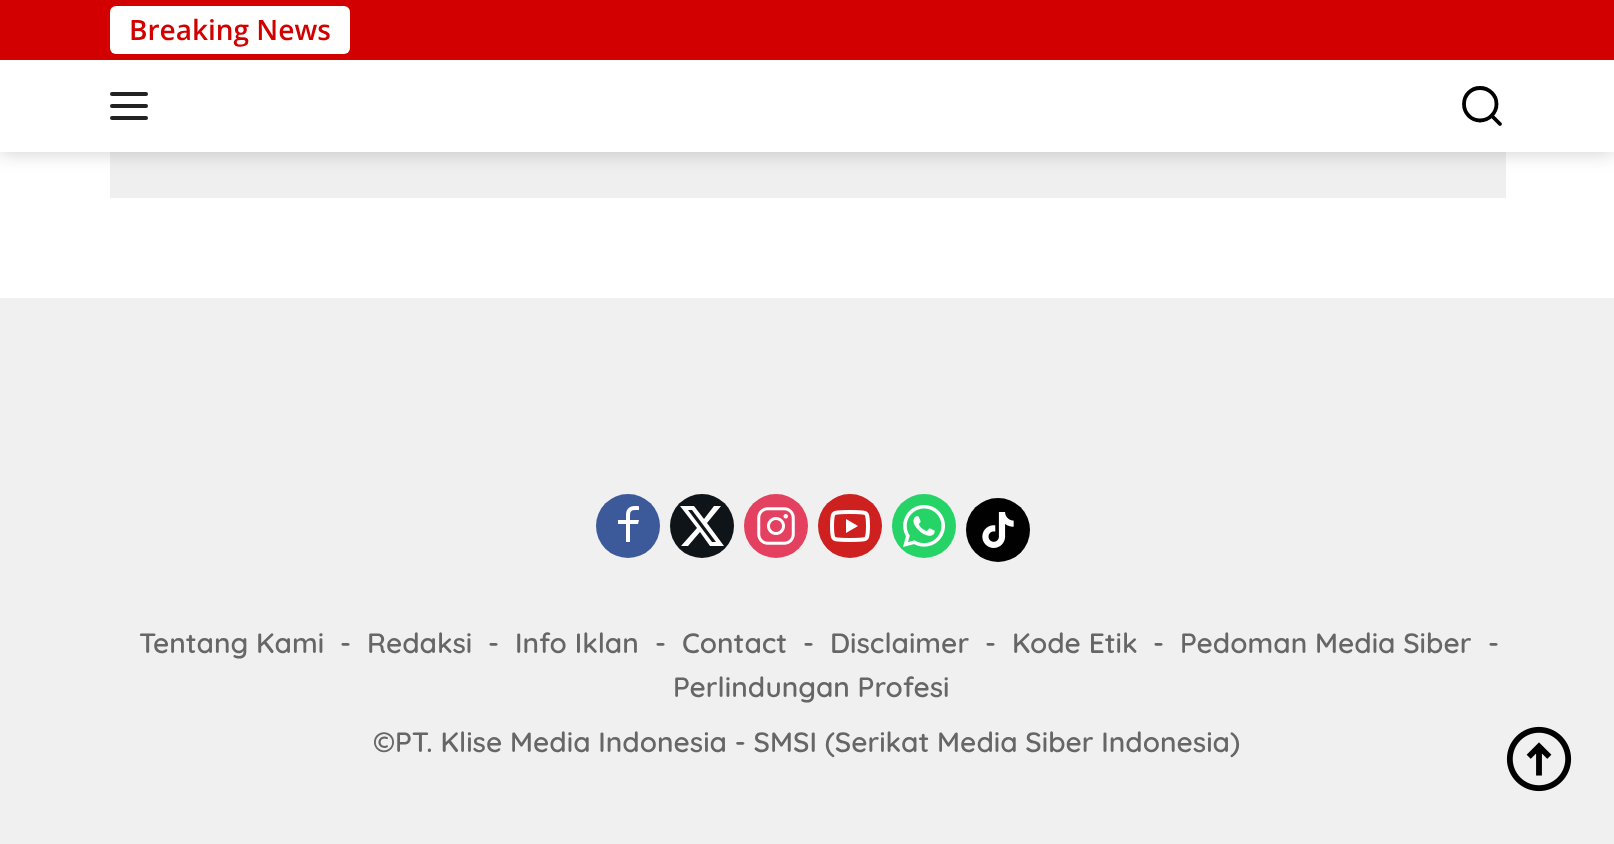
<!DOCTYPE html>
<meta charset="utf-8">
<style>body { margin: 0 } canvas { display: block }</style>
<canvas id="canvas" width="1614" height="844"></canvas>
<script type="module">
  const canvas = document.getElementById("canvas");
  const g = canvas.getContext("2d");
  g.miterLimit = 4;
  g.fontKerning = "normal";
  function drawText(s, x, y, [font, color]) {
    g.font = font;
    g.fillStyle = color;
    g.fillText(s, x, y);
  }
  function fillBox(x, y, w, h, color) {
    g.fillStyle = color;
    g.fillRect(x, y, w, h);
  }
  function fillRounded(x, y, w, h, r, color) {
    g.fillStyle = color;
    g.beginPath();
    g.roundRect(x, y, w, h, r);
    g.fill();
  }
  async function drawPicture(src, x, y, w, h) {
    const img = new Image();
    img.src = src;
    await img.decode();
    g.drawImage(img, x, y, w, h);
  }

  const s1 = ["600 28px Open Sans", "#D30000"];
  const s2 = ["600 28px Quicksand", "#666666"];

  fillBox(0, 0, 1614, 844, "#FFFFFF");
  fillBox(110, 152, 1396, 46, "#EFEFEF");
  g.fillStyle = "rgba(0, 0, 0, 0.2)";
  g.filter = "blur(10px)";
  g.beginPath();
  g.rect(0, 0, 1614, 152);
  g.fill();
  g.filter = "none";
  fillBox(0, 60, 1614, 92, "#FFFFFF");
  fillBox(0, 0, 1614, 60, "#D30000");
  fillRounded(110, 6, 240, 48, 6, "#FFFFFF");
  drawText("Breaking News", 129, 40, s1);
  fillRounded(110, 92, 38, 4, 2, "#222222");
  fillRounded(110, 104, 38, 4, 2, "#222222");
  fillRounded(110, 116, 38, 4, 2, "#222222");
  g.beginPath();
  g.moveTo(1500, 124);
  g.lineTo(1491.5, 115.5);
  g.moveTo(1496.5, 104);
  g.bezierCurveTo(1496.5, 113, 1489, 120.5, 1480, 120.5);
  g.bezierCurveTo(1471, 120.5, 1464, 113, 1464, 104);
  g.bezierCurveTo(1464, 95, 1471, 88, 1480, 88);
  g.bezierCurveTo(1489, 88, 1496.5, 95, 1496.5, 104);
  g.closePath();
  g.strokeStyle = "#000000";
  g.lineWidth = 3.8;
  g.lineCap = "round";
  g.stroke();
  fillBox(0, 298, 1614, 546, "#F0F0F0");
  g.fillStyle = "#3C5A99";
  g.beginPath();
  g.arc(628, 526, 32, 0, Math.PI * 2);
  g.fill();
  await drawPicture("pic1.png", 618, 506, 21, 36);
  g.fillStyle = "#0F1419";
  g.beginPath();
  g.arc(702, 526, 32, 0, Math.PI * 2);
  g.fill();
  g.fillStyle = "#FFFFFF";
  g.beginPath();
  g.moveTo(714, 506);
  g.lineTo(721, 506);
  g.lineTo(707, 523);
  g.lineTo(724, 546);
  g.lineTo(710, 546);
  g.lineTo(700, 532);
  g.lineTo(688, 546);
  g.lineTo(681, 546);
  g.lineTo(697, 528);
  g.lineTo(680, 506);
  g.lineTo(694, 506);
  g.lineTo(704, 519);
  g.closePath();
  g.moveTo(712, 542);
  g.lineTo(716, 542);
  g.lineTo(692, 510);
  g.lineTo(688, 510);
  g.closePath();
  g.fill();
  g.fillStyle = "#E4405F";
  g.beginPath();
  g.arc(776, 526, 32, 0, Math.PI * 2);
  g.fill();
  await drawPicture("pic2.png", 757, 507, 38, 38);
  g.fillStyle = "#CD201F";
  g.beginPath();
  g.arc(850, 526, 32, 0, Math.PI * 2);
  g.fill();
  await drawPicture("pic3.png", 830, 510, 40, 32);
  g.fillStyle = "#25D366";
  g.beginPath();
  g.arc(924, 526, 32, 0, Math.PI * 2);
  g.fill();
  await drawPicture("pic4.png", 903, 505, 42, 42);
  g.fillStyle = "#010101";
  g.beginPath();
  g.arc(998, 530, 32, 0, Math.PI * 2);
  g.fill();
  await drawPicture("pic5.png", 982, 512, 32, 36);
  drawText("Tentang Kami", 139, 653, s2);
  drawText("-", 340, 653, s2);
  drawText("Redaksi", 367, 653, s2);
  drawText("-", 488, 653, s2);
  drawText("Info Iklan", 515, 653, s2);
  drawText("-", 655, 653, s2);
  drawText("Contact", 682, 653, s2);
  drawText("-", 803, 653, s2);
  drawText("Disclaimer", 830, 653, s2);
  drawText("-", 985, 653, s2);
  drawText("Kode Etik", 1012, 653, s2);
  drawText("-", 1153, 653, s2);
  drawText("Pedoman Media Siber", 1180, 653, s2);
  drawText("-", 1488, 653, s2);
  drawText("Perlindungan Profesi", 673, 697, s2);
  drawText("©PT. Klise Media Indonesia - SMSI (Serikat Media Siber Indonesia)", 373, 752, s2);
  await drawPicture("pic6.png", 1506, 726, 66, 66);
</script>
